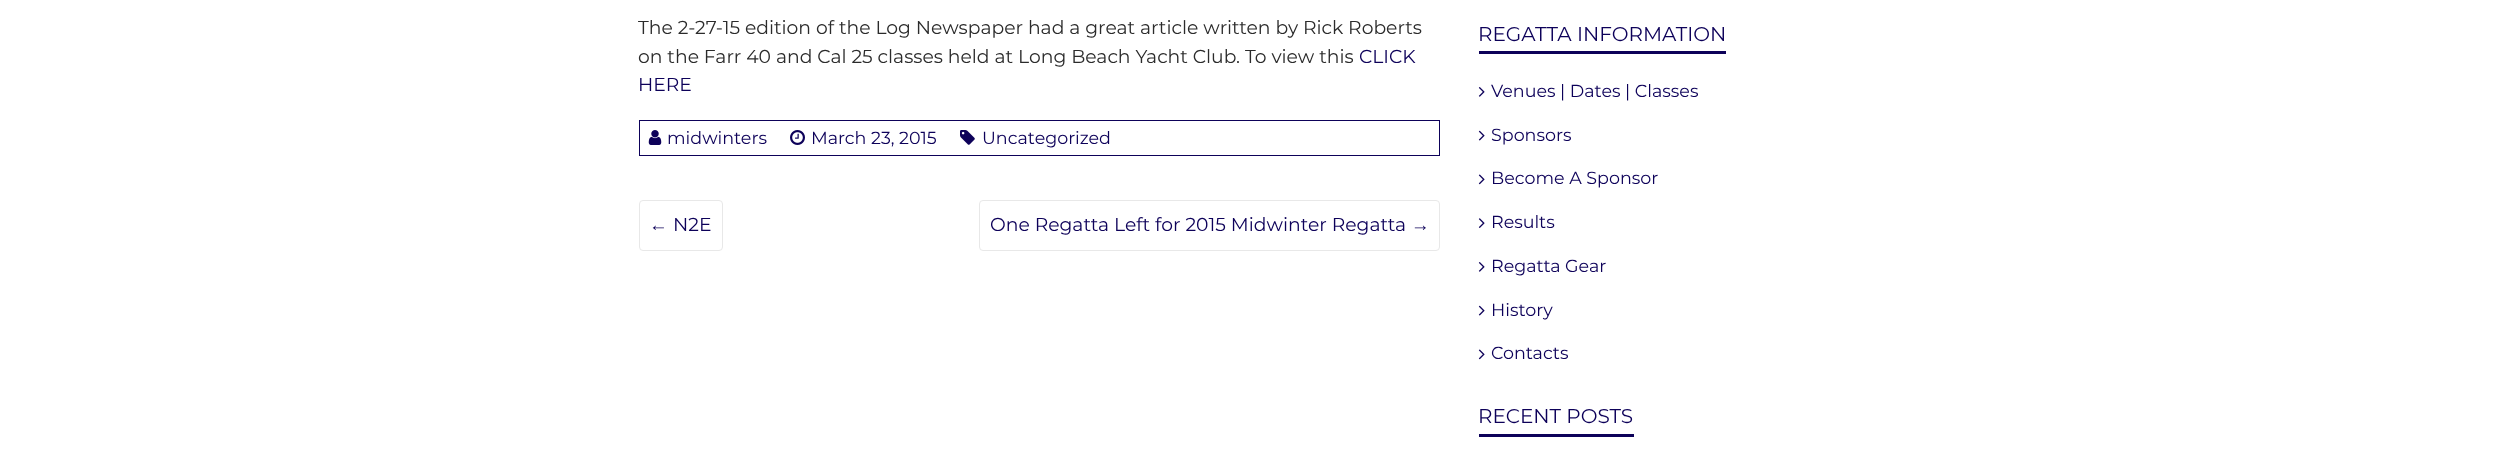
<!DOCTYPE html>
<meta charset="utf-8">
<style>body { margin: 0 } canvas { display: block }</style>
<canvas id="canvas" width="2498" height="452"></canvas>
<script type="module">
  const canvas = document.getElementById("canvas");
  const g = canvas.getContext("2d");
  g.miterLimit = 4;
  g.fontKerning = "normal";
  function drawText(s, x, y, [font, color]) {
    g.font = font;
    g.fillStyle = color;
    g.fillText(s, x, y);
  }
  function fillBox(x, y, w, h, color) {
    g.fillStyle = color;
    g.fillRect(x, y, w, h);
  }
  async function drawPicture(src, x, y, w, h) {
    const img = new Image();
    img.src = src;
    await img.decode();
    g.drawImage(img, x, y, w, h);
  }

  const s1 = ["100 18.75px Montserrat", "#2B2B2B"];
  const s2 = ["100 18.75px Montserrat", "#0D0159"];
  const s3 = ["100 17.5px Montserrat", "#0D0159"];
  const s4 = ["18.75px Liberation Serif", "#0D0159"];
  const s5 = ["100 20px Montserrat", "#0D0159"];

  fillBox(0, 0, 2498, 452, "#FFFFFF");
  drawText("The 2-27-15 edition of the Log Newspaper had a great article written by Rick Roberts", 638, 34, s1);
  drawText("on the Farr 40 and Cal 25 classes held at Long Beach Yacht Club. To view this", 638, 63, s1);
  drawText("CLICK", 1359, 63, s2);
  drawText("HERE", 638, 91, s2);
  g.strokeStyle = "#0D0159";
  g.strokeRect(639.5, 120.5, 800, 35);
  await drawPicture("pic1.png", 648, 130, 14, 15);
  drawText("midwinters", 667, 144, s3);
  await drawPicture("pic2.png", 790, 130, 15, 15);
  drawText("March 23, 2015", 811, 144, s3);
  await drawPicture("pic3.png", 960, 130, 15, 15);
  drawText("Uncategorized", 982, 144, s3);
  g.beginPath();
  g.roundRect(639.5, 200.5, 83, 50, 3.5);
  g.strokeStyle = "#E8E8E8";
  g.stroke();
  drawText("←", 649, 231, s4);
  drawText("N2E", 673, 231, s2);
  g.beginPath();
  g.roundRect(979.5, 200.5, 460, 50, 3.5);
  g.stroke();
  drawText("One Regatta Left for 2015 Midwinter Regatta", 990, 231, s2);
  drawText("→", 1411, 231, s4);
  drawText("REGATTA INFORMATION", 1478, 41, s5);
  fillBox(1479, 51, 247, 3, "#0D0159");
  await drawPicture("pic4.png", 1478, 87, 7, 10);
  drawText("Venues | Dates | Classes", 1491, 97, s3);
  await drawPicture("pic5.png", 1478, 130, 7, 11);
  drawText("Sponsors", 1491, 141, s3);
  await drawPicture("pic6.png", 1478, 174, 7, 11);
  drawText("Become A Sponsor", 1491, 184, s3);
  await drawPicture("pic7.png", 1478, 218, 7, 10);
  drawText("Results", 1491, 228, s3);
  await drawPicture("pic4.png", 1478, 262, 7, 10);
  drawText("Regatta Gear", 1491, 272, s3);
  await drawPicture("pic5.png", 1478, 305, 7, 11);
  drawText("History", 1491, 316, s3);
  await drawPicture("pic6.png", 1478, 349, 7, 11);
  drawText("Contacts", 1491, 359, s3);
  drawText("RECENT POSTS", 1478, 423, s5);
  fillBox(1479, 434, 155, 3, "#0D0159");
</script>
